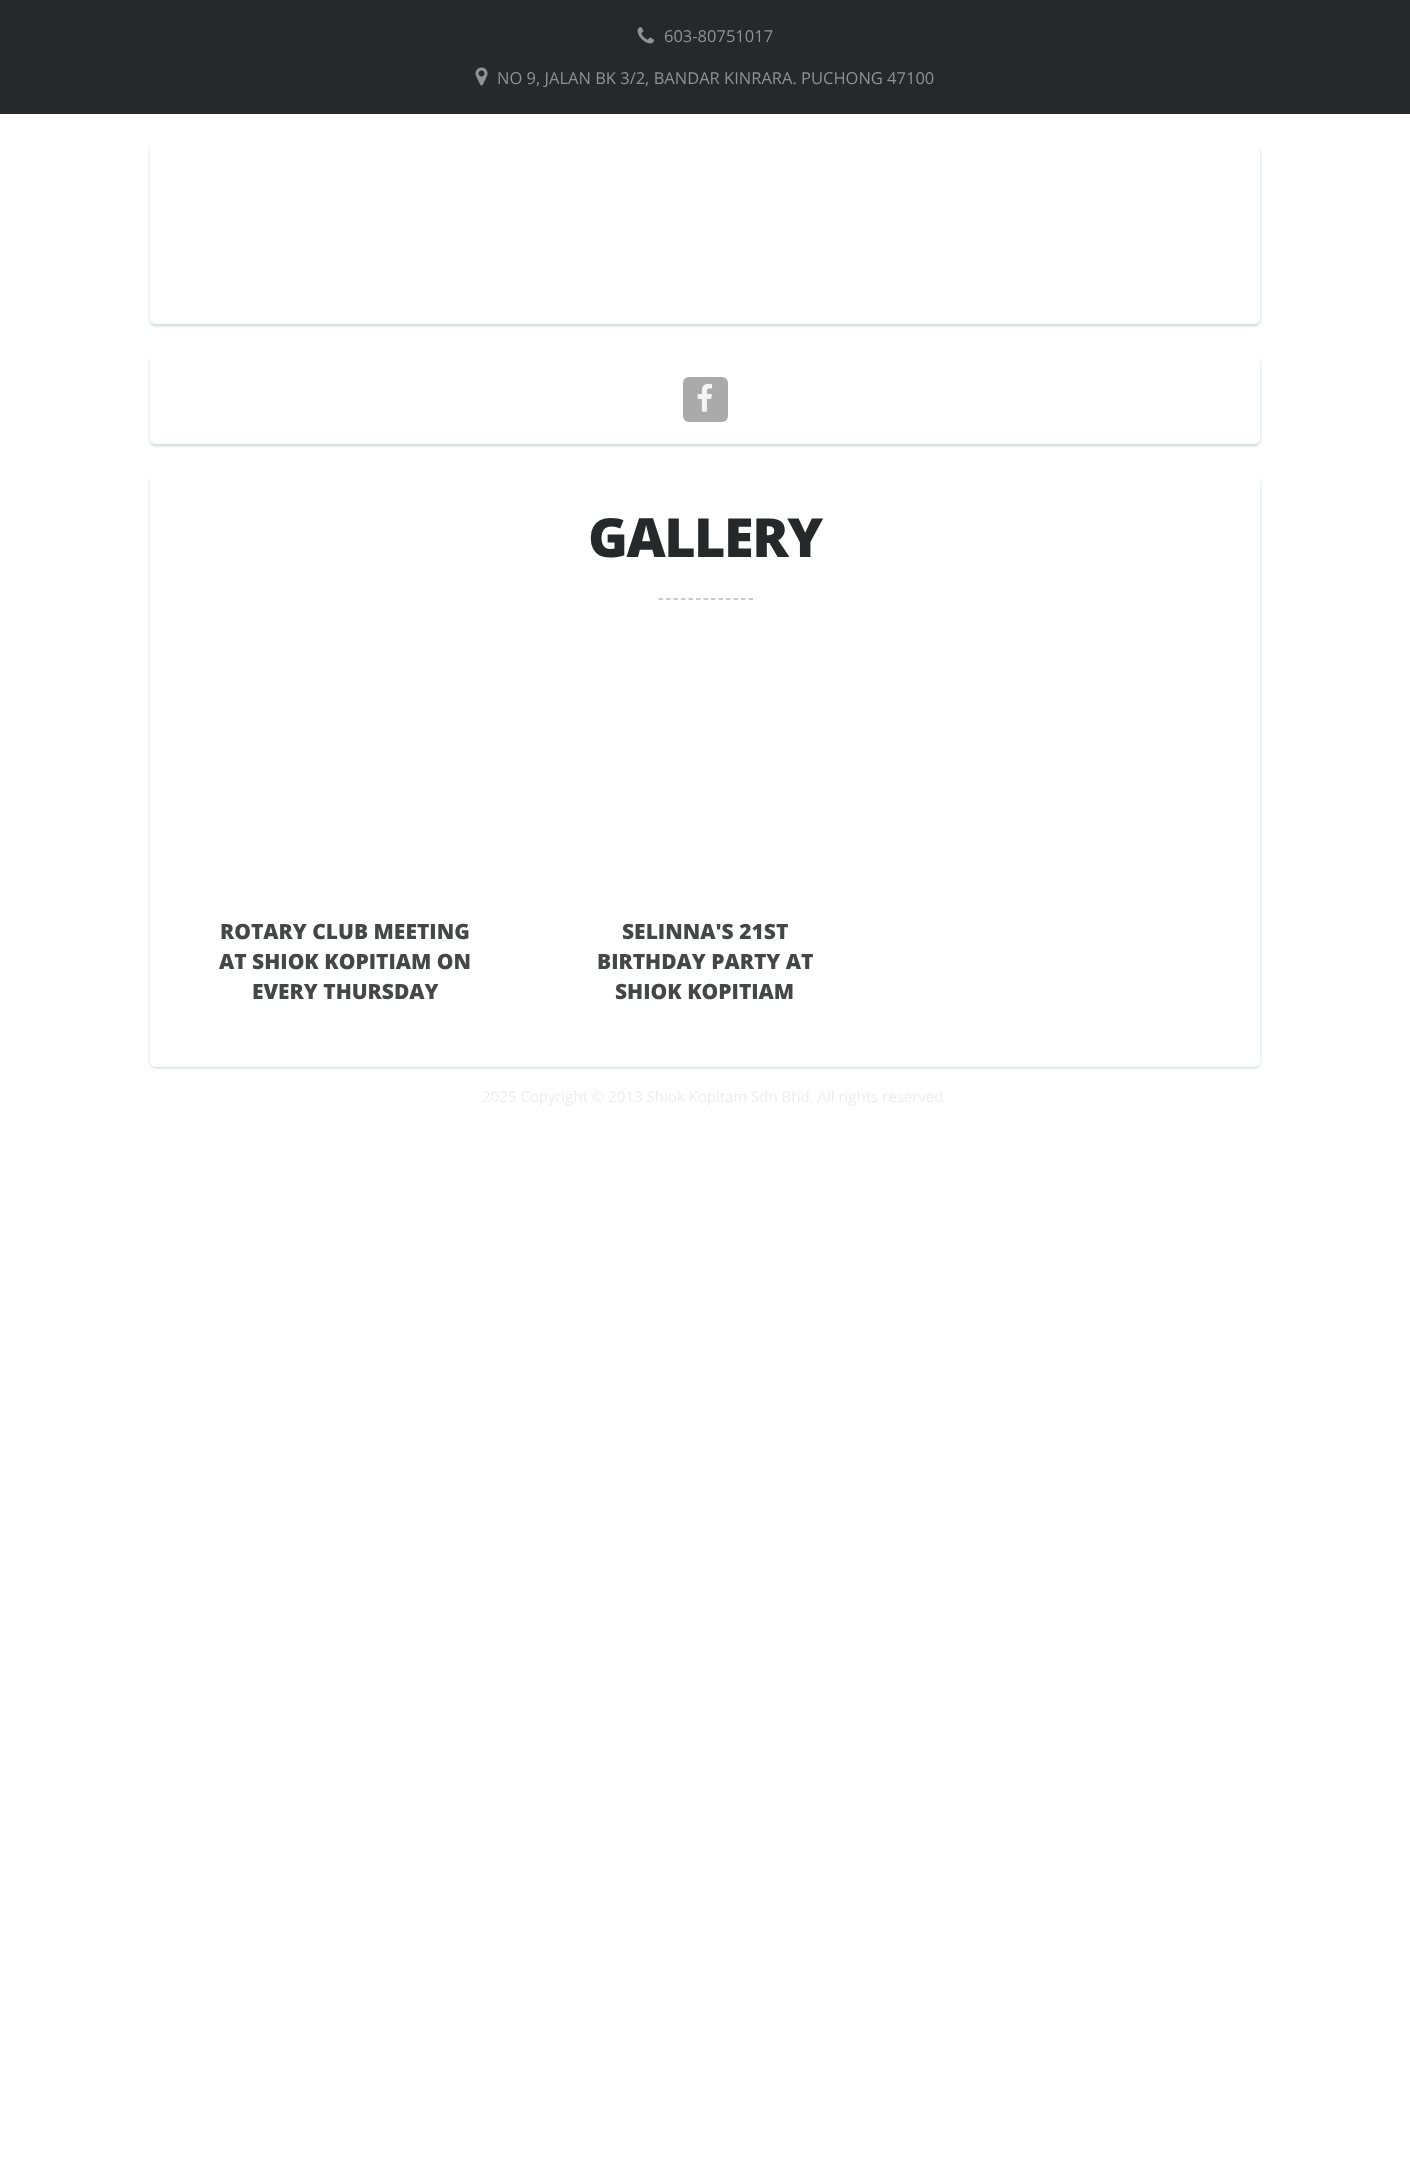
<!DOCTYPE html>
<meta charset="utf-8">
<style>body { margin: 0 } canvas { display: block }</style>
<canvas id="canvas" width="1410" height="2166"></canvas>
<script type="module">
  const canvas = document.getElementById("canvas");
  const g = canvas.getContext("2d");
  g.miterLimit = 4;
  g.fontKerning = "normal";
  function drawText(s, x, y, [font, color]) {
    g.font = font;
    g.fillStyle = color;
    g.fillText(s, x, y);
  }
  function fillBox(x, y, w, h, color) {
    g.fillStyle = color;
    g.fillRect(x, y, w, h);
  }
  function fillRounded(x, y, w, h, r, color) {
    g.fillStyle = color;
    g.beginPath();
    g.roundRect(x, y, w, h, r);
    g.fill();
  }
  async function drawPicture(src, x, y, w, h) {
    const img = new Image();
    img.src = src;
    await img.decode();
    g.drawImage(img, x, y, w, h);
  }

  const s1 = ["16.5px Open Sans", "#909294"];
  const s2 = ["800 54px Open Sans", "#26282A"];
  const s3 = ["800 21px Open Sans", "#444648"];
  const s4 = ["15px Open Sans", "#EEEEEE"];

  fillBox(0, 0, 1410, 2166, "#FFFFFF");
  fillBox(0, 0, 1410, 114, "#26282A");
  await drawPicture("pic1.png", 637, 27, 17, 17);
  drawText("603-80751017", 664, 42, s1);
  await drawPicture("pic2.png", 475, 67, 13, 19);
  drawText("NO 9, JALAN BK 3/2, BANDAR KINRARA. PUCHONG 47100", 497, 84, s1);
  g.save();
  g.beginPath();
  g.moveTo(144, 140);
  g.lineTo(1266, 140);
  g.lineTo(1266, 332);
  g.lineTo(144, 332);
  g.closePath();
  g.moveTo(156, 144);
  g.lineTo(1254, 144);
  g.bezierCurveTo(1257.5, 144, 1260, 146.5, 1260, 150);
  g.lineTo(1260, 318);
  g.bezierCurveTo(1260, 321.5, 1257.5, 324, 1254, 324);
  g.lineTo(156, 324);
  g.bezierCurveTo(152.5, 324, 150, 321.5, 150, 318);
  g.lineTo(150, 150);
  g.bezierCurveTo(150, 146.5, 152.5, 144, 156, 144);
  g.closePath();
  g.clip("evenodd");
  g.fillStyle = "rgba(30, 70, 70, 0.23)";
  g.filter = "blur(1.5px)";
  g.beginPath();
  g.roundRect(150, 146, 1110, 180, 6);
  g.fill();
  g.filter = "none";
  g.restore();
  fillRounded(150, 144, 1110, 180, 6, "rgba(255, 255, 255, 0.9)");
  g.save();
  g.beginPath();
  g.moveTo(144, 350);
  g.lineTo(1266, 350);
  g.lineTo(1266, 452);
  g.lineTo(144, 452);
  g.closePath();
  g.moveTo(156, 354);
  g.lineTo(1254, 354);
  g.bezierCurveTo(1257.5, 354, 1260, 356.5, 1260, 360);
  g.lineTo(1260, 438);
  g.bezierCurveTo(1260, 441.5, 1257.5, 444, 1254, 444);
  g.lineTo(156, 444);
  g.bezierCurveTo(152.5, 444, 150, 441.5, 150, 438);
  g.lineTo(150, 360);
  g.bezierCurveTo(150, 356.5, 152.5, 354, 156, 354);
  g.closePath();
  g.clip("evenodd");
  g.fillStyle = "rgba(30, 70, 70, 0.23)";
  g.filter = "blur(1.5px)";
  g.beginPath();
  g.roundRect(150, 356, 1110, 90, 6);
  g.fill();
  g.filter = "none";
  g.restore();
  fillRounded(150, 354, 1110, 90, 6, "rgba(255, 255, 255, 0.9)");
  fillRounded(683, 377, 45, 45, 6, "#AAAAAA");
  await drawPicture("pic3.png", 697, 383, 16, 29);
  g.save();
  g.beginPath();
  g.moveTo(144, 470);
  g.lineTo(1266, 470);
  g.lineTo(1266, 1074);
  g.lineTo(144, 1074);
  g.closePath();
  g.moveTo(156, 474);
  g.lineTo(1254, 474);
  g.bezierCurveTo(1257.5, 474, 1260, 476.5, 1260, 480);
  g.lineTo(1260, 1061);
  g.bezierCurveTo(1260, 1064.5, 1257.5, 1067, 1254, 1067);
  g.lineTo(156, 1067);
  g.bezierCurveTo(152.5, 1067, 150, 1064.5, 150, 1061);
  g.lineTo(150, 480);
  g.bezierCurveTo(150, 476.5, 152.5, 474, 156, 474);
  g.closePath();
  g.clip("evenodd");
  g.fillStyle = "rgba(30, 70, 70, 0.23)";
  g.filter = "blur(1.5px)";
  g.beginPath();
  g.roundRect(150, 476, 1110, 592, 6);
  g.fill();
  g.filter = "none";
  g.restore();
  fillRounded(150, 474, 1110, 593, 6, "rgba(255, 255, 255, 0.9)");
  g.letterSpacing = "-1.5px";
  drawText("GALLERY", 588, 557, s2);
  g.beginPath();
  g.moveTo(658.5, 599);
  g.lineTo(753, 599);
  g.strokeStyle = "#BBBBBB";
  g.lineWidth = 1.5;
  g.setLineDash([4.5, 3]);
  g.stroke();
  g.letterSpacing = "0px";
  drawText("ROTARY CLUB MEETING", 220, 939, s3);
  drawText("AT SHIOK KOPITIAM ON", 219, 969, s3);
  drawText("EVERY THURSDAY", 252, 999, s3);
  drawText("SELINNA'S 21ST", 622, 939, s3);
  drawText("BIRTHDAY PARTY AT", 597, 969, s3);
  drawText("SHIOK KOPITIAM", 615, 999, s3);
  drawText("2025 Copyright © 2013 Shiok Kopitam Sdn Bhd. All rights reserved", 482, 1102, s4);
</script>
